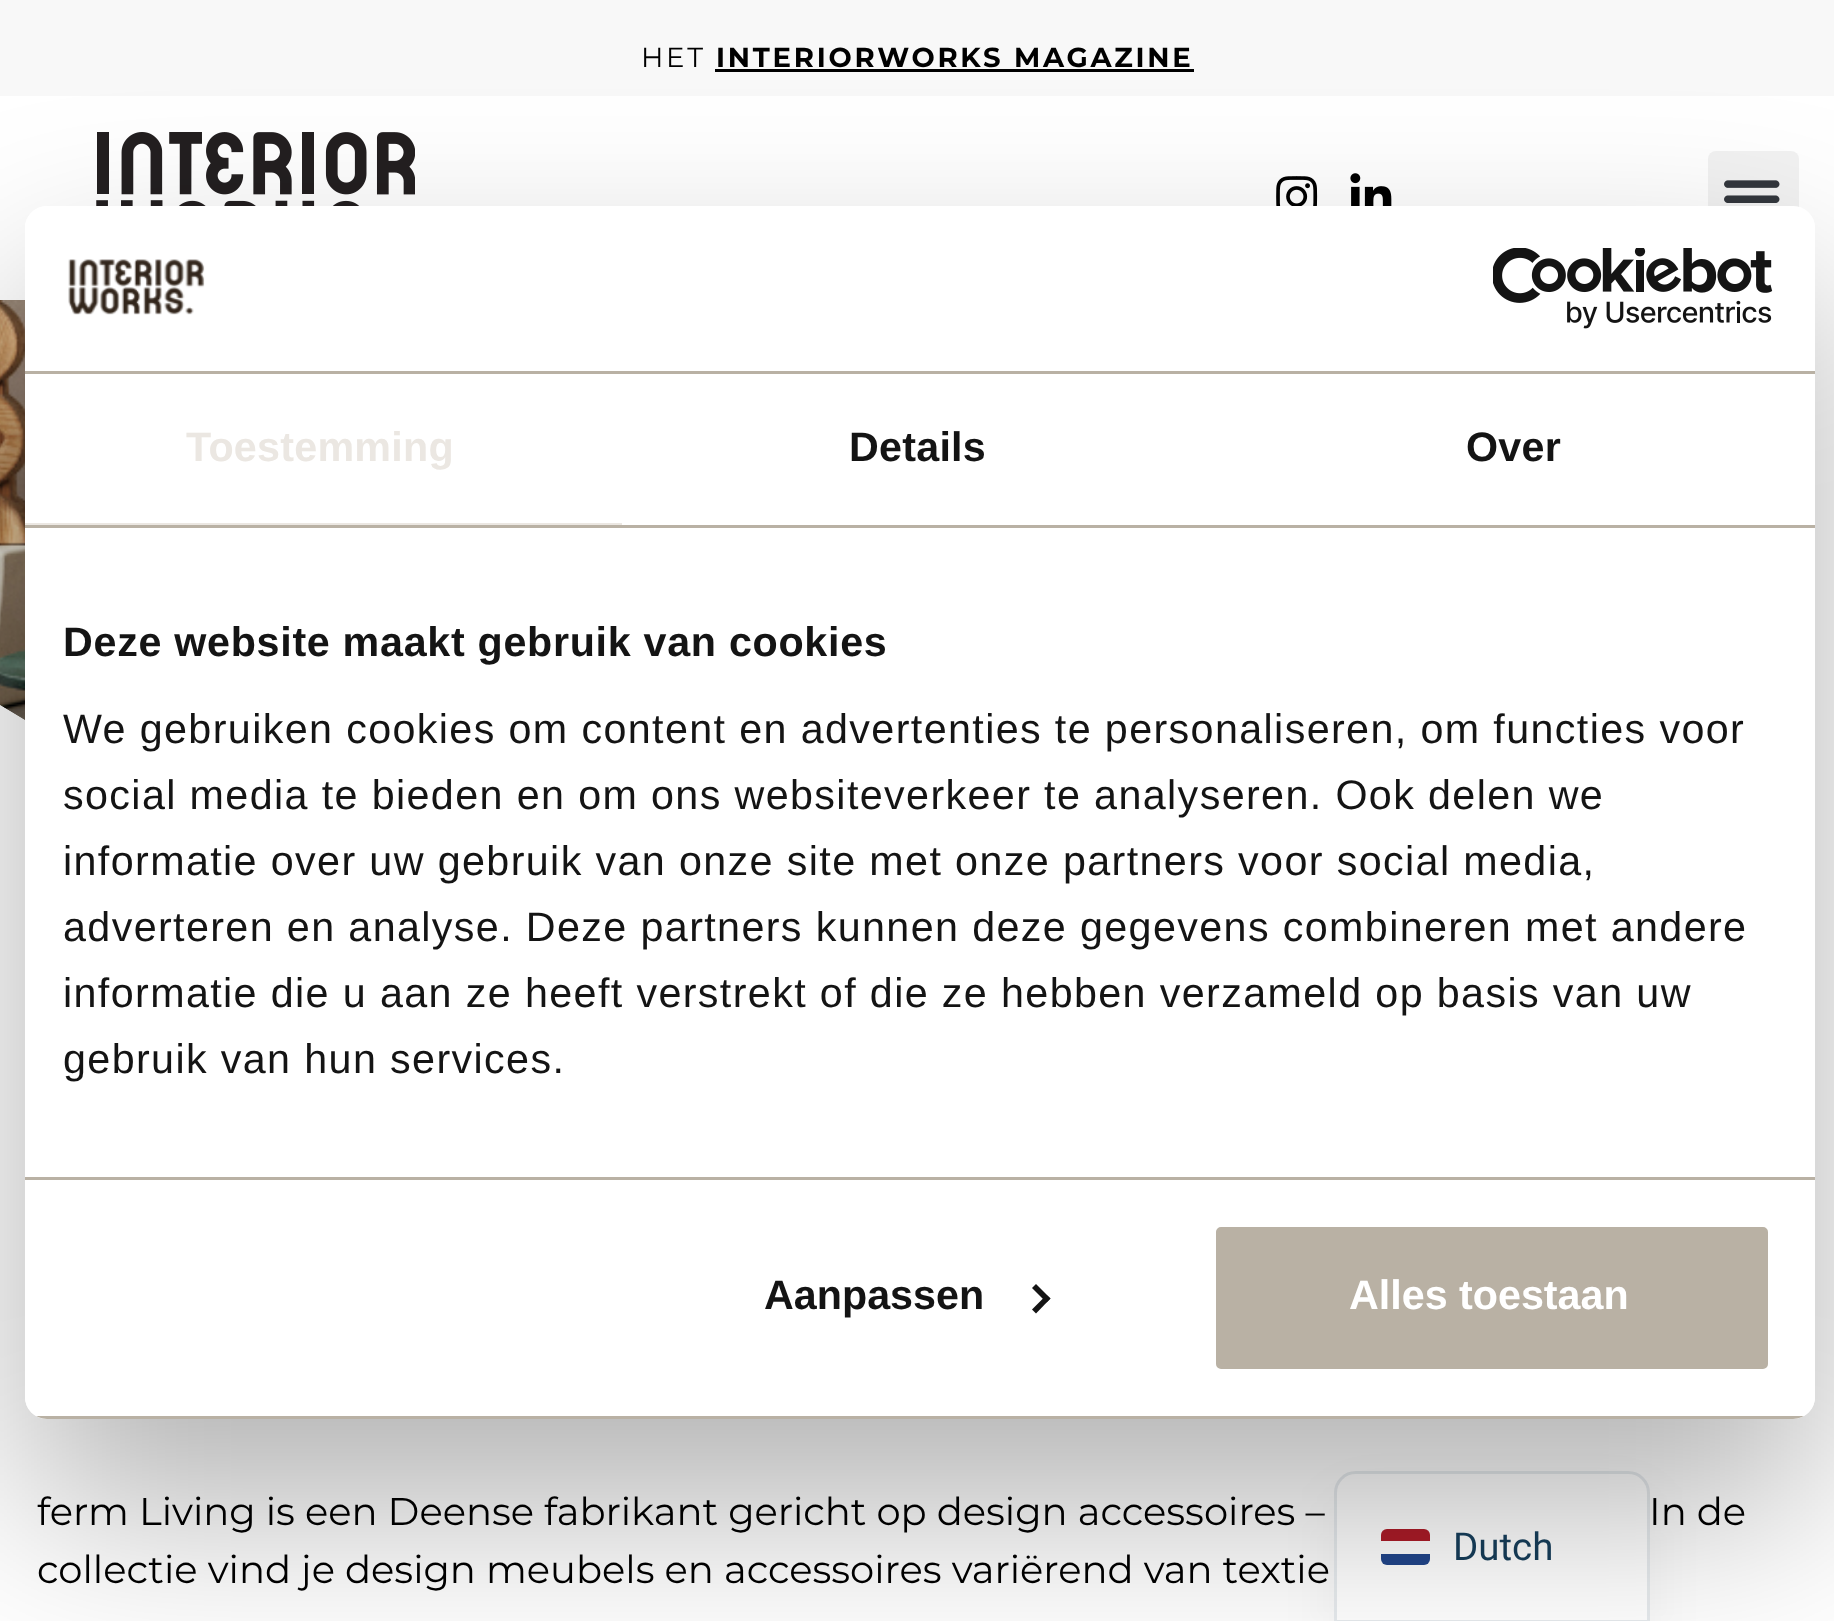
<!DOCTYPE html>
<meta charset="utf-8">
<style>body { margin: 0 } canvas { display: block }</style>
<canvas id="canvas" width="1834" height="1621"></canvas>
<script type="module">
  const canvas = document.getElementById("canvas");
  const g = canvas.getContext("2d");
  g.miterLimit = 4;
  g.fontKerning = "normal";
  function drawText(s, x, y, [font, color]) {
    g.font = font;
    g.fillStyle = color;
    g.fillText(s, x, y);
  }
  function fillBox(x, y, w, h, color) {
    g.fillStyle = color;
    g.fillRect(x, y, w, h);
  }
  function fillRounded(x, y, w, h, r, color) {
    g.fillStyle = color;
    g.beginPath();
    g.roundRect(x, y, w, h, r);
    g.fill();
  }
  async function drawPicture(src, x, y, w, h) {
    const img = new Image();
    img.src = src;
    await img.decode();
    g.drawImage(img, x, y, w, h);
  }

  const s1 = ["27.5px Montserrat", "#000000"];
  const s2 = ["bold 27.5px Montserrat", "#000000"];
  const s3 = ["bold 41.25px Liberation Sans", "#EBE7E2"];
  const s4 = ["bold 41.25px Liberation Sans", "#141414"];
  const s5 = ["41.25px Liberation Sans", "#141414"];
  const s6 = ["bold 41.25px Liberation Sans", "#FFFFFF"];
  const s7 = ["38.5px Montserrat", "#000000"];
  const s8 = ["38.5px Roboto", "#143852"];

  fillBox(0, 0, 1834, 1621, "#FFFFFF");
  fillBox(0, 0, 1834, 96, "#F8F8F8");
  g.letterSpacing = "2.75px";
  drawText("HET", 641, 67, s1);
  drawText("INTERIORWORKS MAGAZINE", 716, 67, s2);
  fillBox(715, 69, 479, 3, "#000000");
  await drawPicture("pic1.png", 96, 132, 319, 74);
  await drawPicture("pic2.png", 1276, 176, 42, 30);
  await drawPicture("pic3.png", 1350, 173, 42, 33);
  fillRounded(1708, 151, 91, 91, 8, "#F2F2F2");
  await drawPicture("pic4.png", 1724, 180, 56, 23);
  await drawPicture("pic7.png", 0, 704, 25, 16);
  await drawPicture("pic8.png", 0, 300, 25, 420);
  g.fillStyle = "rgba(0, 0, 0, 0.05)";
  g.filter = "blur(27.5px)";
  g.beginPath();
  g.roundRect(1334, 1499, 316, 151, 22);
  g.fill();
  g.filter = "none";
  g.fillStyle = "#FFFFFF";
  g.beginPath();
  g.moveTo(1356, 1472.5);
  g.lineTo(1628, 1472.5);
  g.bezierCurveTo(1639.5, 1472.5, 1648.5, 1481.5, 1648.5, 1493);
  g.lineTo(1648.5, 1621.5);
  g.lineTo(1335.5, 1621.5);
  g.lineTo(1335.5, 1493);
  g.bezierCurveTo(1335.5, 1481.5, 1344.5, 1472.5, 1356, 1472.5);
  g.closePath();
  g.fill();
  g.strokeStyle = "#E7EBEE";
  g.lineWidth = 3;
  g.stroke();
  g.fillStyle = "#AE1C28";
  g.beginPath();
  g.roundRect(1381, 1529, 49, 12, [6, 6, 0, 0]);
  g.fill();
  g.fillStyle = "#21468B";
  g.beginPath();
  g.roundRect(1381, 1554, 49, 11, [0, 0, 6, 6]);
  g.fill();
  g.save();
  g.beginPath();
  g.moveTo(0, 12);
  g.lineTo(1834, 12);
  g.lineTo(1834, 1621);
  g.lineTo(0, 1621);
  g.closePath();
  g.moveTo(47, 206);
  g.lineTo(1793, 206);
  g.bezierCurveTo(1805, 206, 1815, 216, 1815, 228);
  g.lineTo(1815, 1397);
  g.bezierCurveTo(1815, 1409, 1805, 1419, 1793, 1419);
  g.lineTo(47, 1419);
  g.bezierCurveTo(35, 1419, 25, 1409, 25, 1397);
  g.lineTo(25, 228);
  g.bezierCurveTo(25, 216, 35, 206, 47, 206);
  g.closePath();
  g.clip("evenodd");
  g.fillStyle = "rgba(0, 0, 0, 0.3)";
  g.filter = "blur(93.5px)";
  g.beginPath();
  g.roundRect(25, 294, 1790, 1213, 22);
  g.fill();
  g.filter = "none";
  g.restore();
  fillRounded(25, 206, 1790, 1213, 22, "#FFFFFF");
  fillBox(25, 371, 1790, 3, "#B9B1A4");
  await drawPicture("pic5.png", 68, 259, 137, 56);
  await drawPicture("pic6.png", 1493, 248, 280, 81);
  fillBox(25, 525, 1790, 3, "#B9B1A4");
  fillBox(25, 523, 597, 2, "#EBE7E2");
  g.letterSpacing = "0.25px";
  drawText("Toestemming", 186, 461, s3);
  drawText("Details", 849, 461, s4);
  drawText("Over", 1466, 461, s4);
  fillBox(25, 1177, 1790, 3, "#B9B1A4");
  g.letterSpacing = "0.7px";
  drawText("Deze website maakt gebruik van cookies", 63, 656, s4);
  g.letterSpacing = "1.38px";
  drawText("We gebruiken cookies om content en advertenties te personaliseren, om functies voor", 63, 743, s5);
  drawText("social media te bieden en om ons websiteverkeer te analyseren. Ook delen we", 63, 809, s5);
  drawText("informatie over uw gebruik van onze site met onze partners voor social media,", 63, 875, s5);
  drawText("adverteren en analyse. Deze partners kunnen deze gegevens combineren met andere", 63, 941, s5);
  drawText("informatie die u aan ze heeft verstrekt of die ze hebben verzameld op basis van uw", 63, 1007, s5);
  drawText("gebruik van hun services.", 63, 1073, s5);
  g.save();
  g.beginPath();
  g.roundRect(25, 206, 1790, 1213, 22);
  g.clip();
  fillBox(36, 1416, 1768, 3, "#B9B1A4");
  g.restore();
  g.letterSpacing = "0px";
  drawText("Aanpassen", 764, 1309, s4);
  g.beginPath();
  g.moveTo(1036, 1284);
  g.lineTo(1050.5, 1298.5);
  g.lineTo(1046.5, 1302.5);
  g.lineTo(1032, 1288);
  g.closePath();
  g.fill();
  g.beginPath();
  g.moveTo(1046.5, 1295);
  g.lineTo(1050.5, 1298.5);
  g.lineTo(1036, 1313.5);
  g.lineTo(1032, 1309.5);
  g.closePath();
  g.fill();
  g.fillStyle = "#B9B1A4";
  g.beginPath();
  g.roundRect(1213, 1224, 558, 148, 8);
  g.fill();
  g.strokeStyle = "#FFFFFF";
  g.lineWidth = 6;
  g.stroke();
  drawText("Alles toestaan", 1349, 1309, s6);
  drawText("ferm Living is een Deense fabrikant gericht op design accessoires –", 37, 1525, s7);
  drawText("In de", 1649, 1525, s7);
  drawText("collectie vind je design meubels en accessoires variërend van textie", 37, 1583, s7);
  drawText("Dutch", 1453, 1560, s8);
</script>
